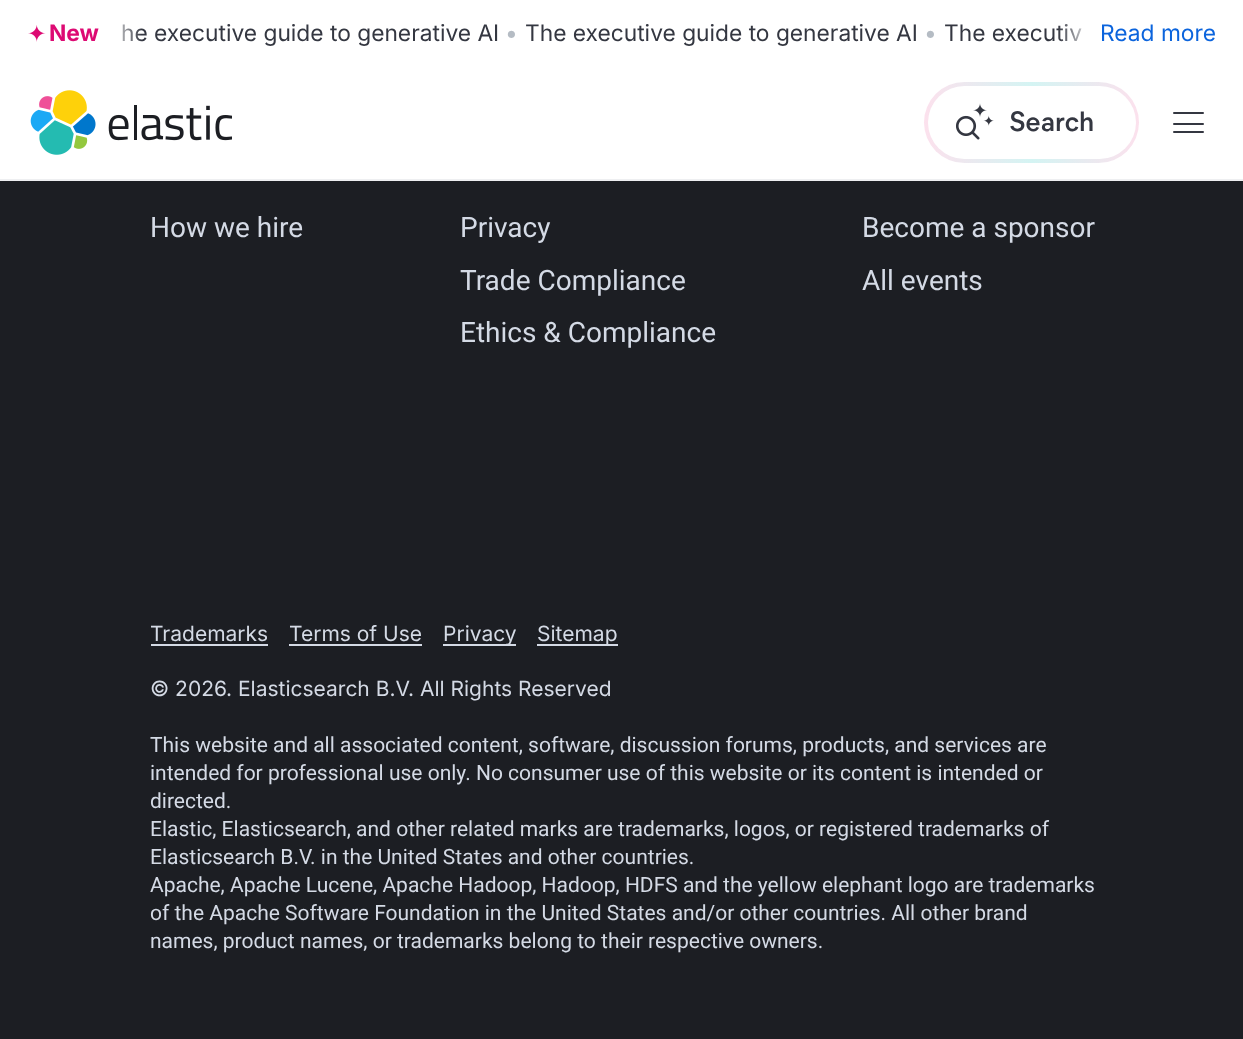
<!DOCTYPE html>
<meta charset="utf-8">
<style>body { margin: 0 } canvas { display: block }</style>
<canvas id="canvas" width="1243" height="1039"></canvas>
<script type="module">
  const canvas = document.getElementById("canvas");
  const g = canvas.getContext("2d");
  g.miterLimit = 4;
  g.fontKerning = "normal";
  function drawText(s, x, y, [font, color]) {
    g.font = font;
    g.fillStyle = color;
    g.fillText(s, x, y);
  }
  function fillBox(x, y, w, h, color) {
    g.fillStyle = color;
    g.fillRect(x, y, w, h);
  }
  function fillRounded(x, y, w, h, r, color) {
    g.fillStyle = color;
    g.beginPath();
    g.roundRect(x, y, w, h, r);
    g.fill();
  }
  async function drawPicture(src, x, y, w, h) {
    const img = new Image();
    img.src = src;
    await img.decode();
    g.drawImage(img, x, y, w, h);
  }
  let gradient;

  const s1 = ["bold 22.75px Inter", "#DD0A73"];
  const s2 = ["22.75px Inter", "#343741"];
  const s3 = ["22.75px Inter", "#B5BCC4"];
  const s4 = ["22.75px Inter", "#0B64DD"];
  const s5 = ["600 28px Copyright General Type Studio", "#343741"];
  const s6 = ["28px Roboto", "#D4DAE5"];
  const s7 = ["21px Inter", "#D4DAE5"];
  const s8 = ["21px Roboto", "#D4DAE5"];

  fillBox(0, 0, 1243, 1039, "#1C1E23");
  fillBox(0, 0, 1243, 179, "#FFFFFF");
  fillBox(0, 179, 1243, 2, "#EEEFF1");
  await drawPicture("pic1.png", 28, 25, 18, 17);
  drawText("New", 49, 41, s1);
  drawText("he executive guide to generative AI", 121, 41, s2);
  drawText("•", 505, 41, s3);
  drawText("The executive guide to generative AI", 525, 41, s2);
  drawText("•", 924, 41, s3);
  drawText("The executiv", 944, 41, s2);
  gradient = g.createLinearGradient(107, 33, 142, 33);
  gradient.addColorStop(0, "#FFFFFF");
  gradient.addColorStop(1, "rgba(255, 255, 255, 0)");
  g.fillStyle = gradient;
  g.fillRect(122, 24, 19, 17);
  gradient = g.createLinearGradient(1093, 33, 1058, 33);
  gradient.addColorStop(0, "#FFFFFF");
  gradient.addColorStop(1, "rgba(255, 255, 255, 0)");
  g.fillStyle = gradient;
  g.fillRect(1059, 24, 23, 18);
  drawText("Read more", 1100, 41, s4);
  await drawPicture("pic2.png", 30, 90, 202, 65);
  gradient = g.createLinearGradient(924, 123, 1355, 122);
  gradient.addColorStop(0, "#FCE1ED");
  gradient.addColorStop(0.25, "#D4F4F3");
  gradient.addColorStop(0.5, "#FCE1ED");
  gradient.addColorStop(0.75, "#D4F4F3");
  gradient.addColorStop(1, "#FCE1ED");
  g.fillStyle = gradient;
  g.beginPath();
  g.roundRect(924, 82, 215, 81, 40.5);
  g.fill();
  fillRounded(928, 86, 208, 73, 36.5, "#FFFFFF");
  await drawPicture("pic3.png", 956, 103, 38, 37);
  drawText("Search", 1009, 131, s5);
  fillRounded(1173, 112, 31, 2, 1, "#343741");
  fillRounded(1173, 123, 31, 2, 1, "#343741");
  fillRounded(1173, 131, 31, 2, 1, "#343741");
  drawText("How we hire", 150, 237, s6);
  drawText("Privacy", 460, 237, s6);
  drawText("Trade Compliance", 460, 290, s6);
  drawText("Ethics & Compliance", 460, 342, s6);
  drawText("Become a sponsor", 862, 237, s6);
  drawText("All events", 862, 290, s6);
  drawText("Trademarks", 150, 641, s7);
  fillBox(151, 644, 117, 2, "#D4DAE5");
  drawText("Terms of Use", 289, 641, s7);
  fillBox(289, 644, 133, 2, "#D4DAE5");
  fillBox(443, 644, 73, 2, "#D4DAE5");
  drawText("Privacy", 443, 641, s7);
  fillBox(537, 644, 81, 2, "#D4DAE5");
  drawText("Sitemap", 537, 641, s7);
  drawText("© 2026", 150, 696, s7);
  drawText(". Elasticsearch B.V. All Rights Reserved", 226, 696, s7);
  drawText("This website and all associated content, software, discussion forums, products, and services are", 150, 752, s8);
  drawText("intended for professional use only. No consumer use of this website or its content is intended or", 150, 780, s8);
  drawText("directed.", 150, 808, s8);
  drawText("Elastic, Elasticsearch, and other related marks are trademarks, logos, or registered trademarks of", 150, 836, s8);
  drawText("Elasticsearch B.V. in the United States and other countries.", 150, 864, s8);
  drawText("Apache, Apache Lucene, Apache Hadoop, Hadoop, HDFS and the yellow elephant logo are trademarks", 150, 892, s8);
  drawText("of the Apache Software Foundation in the United States and/or other countries. All other brand", 150, 920, s8);
  drawText("names, product names, or trademarks belong to their respective owners.", 150, 948, s8);
</script>
